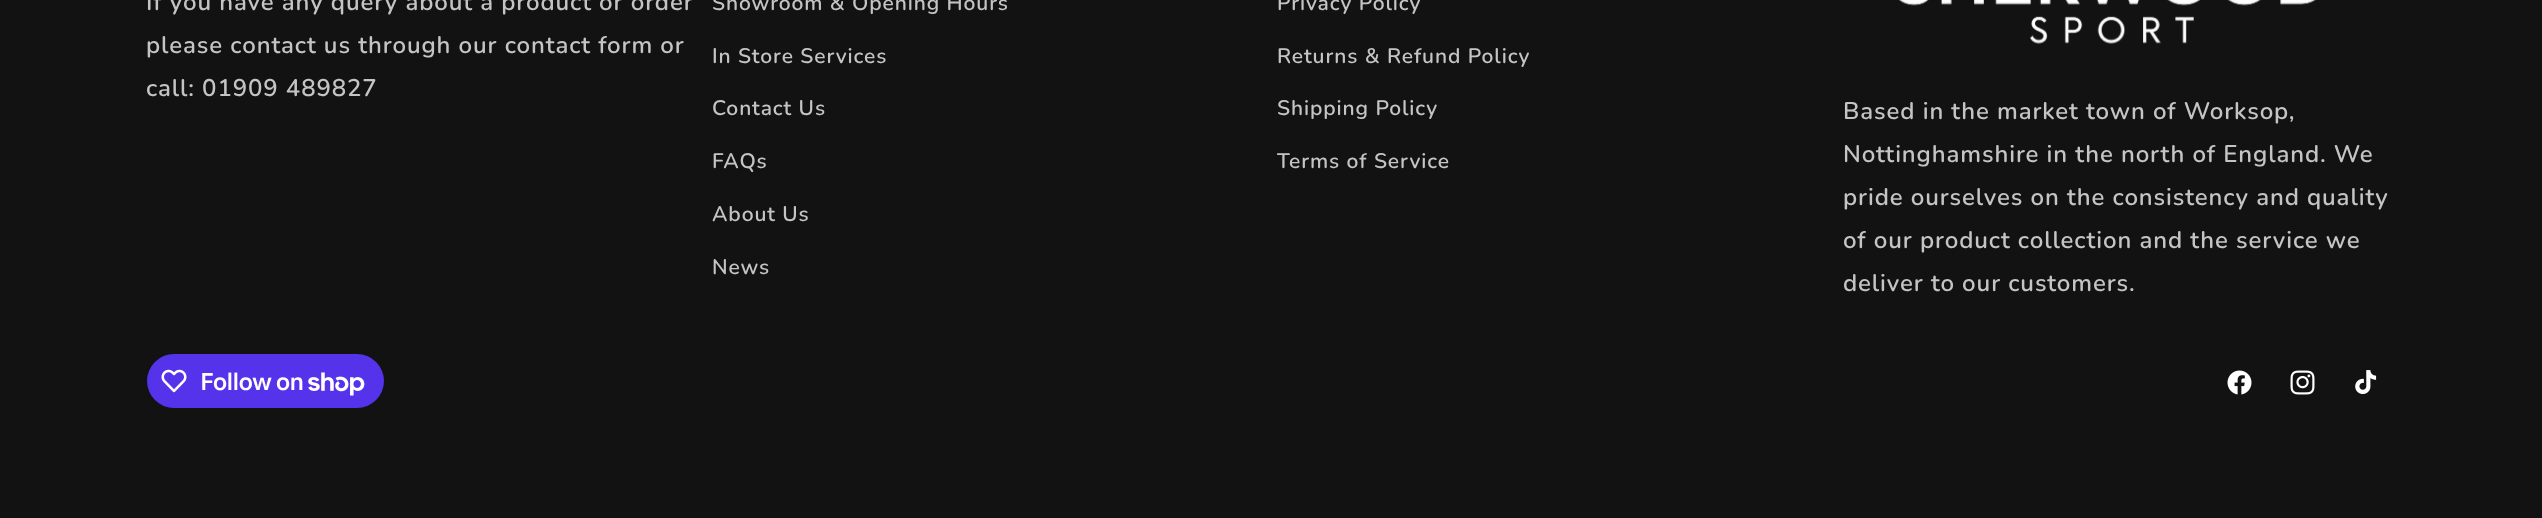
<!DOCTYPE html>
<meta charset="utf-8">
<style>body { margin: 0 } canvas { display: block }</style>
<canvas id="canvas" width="2542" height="518"></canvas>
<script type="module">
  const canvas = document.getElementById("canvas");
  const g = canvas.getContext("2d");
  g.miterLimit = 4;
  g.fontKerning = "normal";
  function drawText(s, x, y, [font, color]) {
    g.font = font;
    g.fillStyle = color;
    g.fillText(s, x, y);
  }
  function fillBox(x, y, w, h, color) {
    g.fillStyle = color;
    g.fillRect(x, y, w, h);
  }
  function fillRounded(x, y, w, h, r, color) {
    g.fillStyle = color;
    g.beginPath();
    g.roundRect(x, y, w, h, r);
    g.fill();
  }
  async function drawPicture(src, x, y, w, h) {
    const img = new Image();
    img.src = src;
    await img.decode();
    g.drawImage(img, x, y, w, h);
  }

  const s1 = ["600 24px Nunito", "#C4C4C4"];
  const s2 = ["600 21px Nunito", "#C4C4C4"];
  const s3 = ["600 24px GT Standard", "#FFFFFF"];

  fillBox(0, 0, 2542, 518, "#121212");
  g.letterSpacing = "0.9px";
  drawText("If you have any query about a product or order", 146, 10, s1);
  drawText("please contact us through our contact form or", 146, 53, s1);
  drawText("call: 01909 489827", 146, 96, s1);
  drawText("Showroom & Opening Hours", 712, 10, s2);
  drawText("In Store Services", 712, 63, s2);
  drawText("Contact Us", 712, 115, s2);
  drawText("FAQs", 712, 168, s2);
  drawText("About Us", 712, 221, s2);
  drawText("News", 712, 274, s2);
  drawText("Privacy Policy", 1277, 10, s2);
  drawText("Returns & Refund Policy", 1277, 63, s2);
  drawText("Shipping Policy", 1277, 115, s2);
  drawText("Terms of Service", 1277, 168, s2);
  await drawPicture("pic1.png", 1898, 0, 418, 44);
  drawText("Based in the market town of Worksop,", 1843, 119, s1);
  drawText("Nottinghamshire in the north of England. We", 1843, 162, s1);
  drawText("pride ourselves on the consistency and quality", 1843, 205, s1);
  drawText("of our product collection and the service we", 1843, 248, s1);
  drawText("deliver to our customers.", 1843, 291, s1);
  fillRounded(147, 354, 237, 54, 27, "#5433EB");
  await drawPicture("pic2.png", 161, 369, 26, 24);
  g.letterSpacing = "-0.75px";
  drawText("Follow on", 200, 390, s3);
  await drawPicture("pic3.png", 308, 372, 57, 24);
  await drawPicture("pic4.png", 2227, 370, 25, 25);
  await drawPicture("pic5.png", 2290, 370, 25, 25);
  await drawPicture("pic6.png", 2355, 370, 22, 25);
</script>
